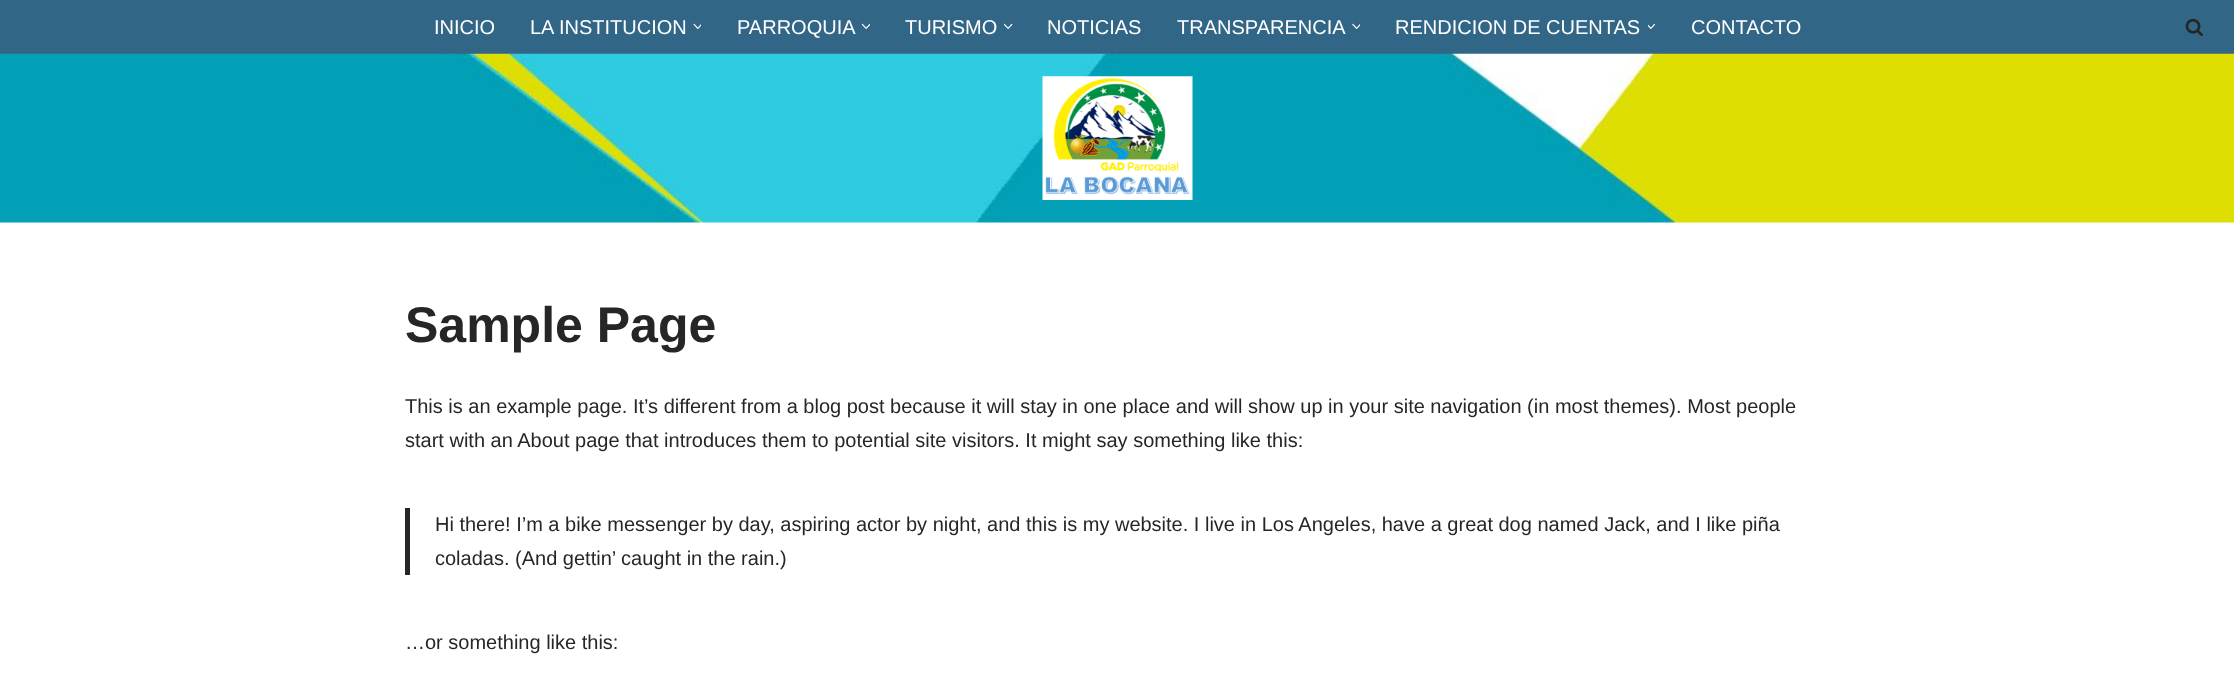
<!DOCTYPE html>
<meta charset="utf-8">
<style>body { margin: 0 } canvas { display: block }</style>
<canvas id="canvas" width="2234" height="674"></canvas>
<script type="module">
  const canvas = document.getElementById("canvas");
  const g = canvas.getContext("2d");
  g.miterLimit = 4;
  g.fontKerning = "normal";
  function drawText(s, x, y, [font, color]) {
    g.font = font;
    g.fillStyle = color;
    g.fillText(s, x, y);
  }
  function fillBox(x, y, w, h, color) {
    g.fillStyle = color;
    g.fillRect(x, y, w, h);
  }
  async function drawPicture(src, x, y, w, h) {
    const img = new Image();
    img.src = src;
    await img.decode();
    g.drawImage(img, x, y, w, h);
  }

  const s1 = ["20px Liberation Sans", "#FFFFFF"];
  const s2 = ["bold 50px Liberation Sans", "#272626"];
  const s3 = ["20px Liberation Sans", "#272626"];

  fillBox(0, 0, 2234, 674, "#FFFFFF");
  fillBox(0, 0, 2234, 54, "#326687");
  drawText("INICIO", 434, 34, s1);
  drawText("LA INSTITUCION", 530, 34, s1);
  await drawPicture("pic1.png", 693, 23, 8, 6);
  drawText("PARROQUIA", 737, 34, s1);
  await drawPicture("pic2.png", 861, 23, 9, 6);
  drawText("TURISMO", 905, 34, s1);
  await drawPicture("pic3.png", 1004, 23, 9, 6);
  drawText("NOTICIAS", 1047, 34, s1);
  drawText("TRANSPARENCIA", 1177, 34, s1);
  await drawPicture("pic4.png", 1352, 23, 8, 6);
  drawText("RENDICION DE CUENTAS", 1395, 34, s1);
  await drawPicture("pic5.png", 1648, 23, 8, 6);
  drawText("CONTACTO", 1691, 34, s1);
  await drawPicture("pic6.png", 2185, 18, 18, 18);
  await drawPicture("pic7.png", 0, 53, 2234, 170);
  await drawPicture("pic8.png", 1042, 76, 151, 124);
  drawText("Sample Page", 405, 342, s2);
  drawText("This is an example page. It’s different from a blog post because it will stay in one place and will show up in your site navigation (in most themes). Most people", 405, 413, s3);
  drawText("start with an About page that introduces them to potential site visitors. It might say something like this:", 405, 447, s3);
  fillBox(405, 508, 5, 67, "#272626");
  drawText("Hi there! I’m a bike messenger by day, aspiring actor by night, and this is my website. I live in Los Angeles, have a great dog named Jack, and I like piña", 435, 531, s3);
  drawText("coladas. (And gettin’ caught in the rain.)", 435, 565, s3);
  drawText("…or something like this:", 405, 649, s3);
</script>
